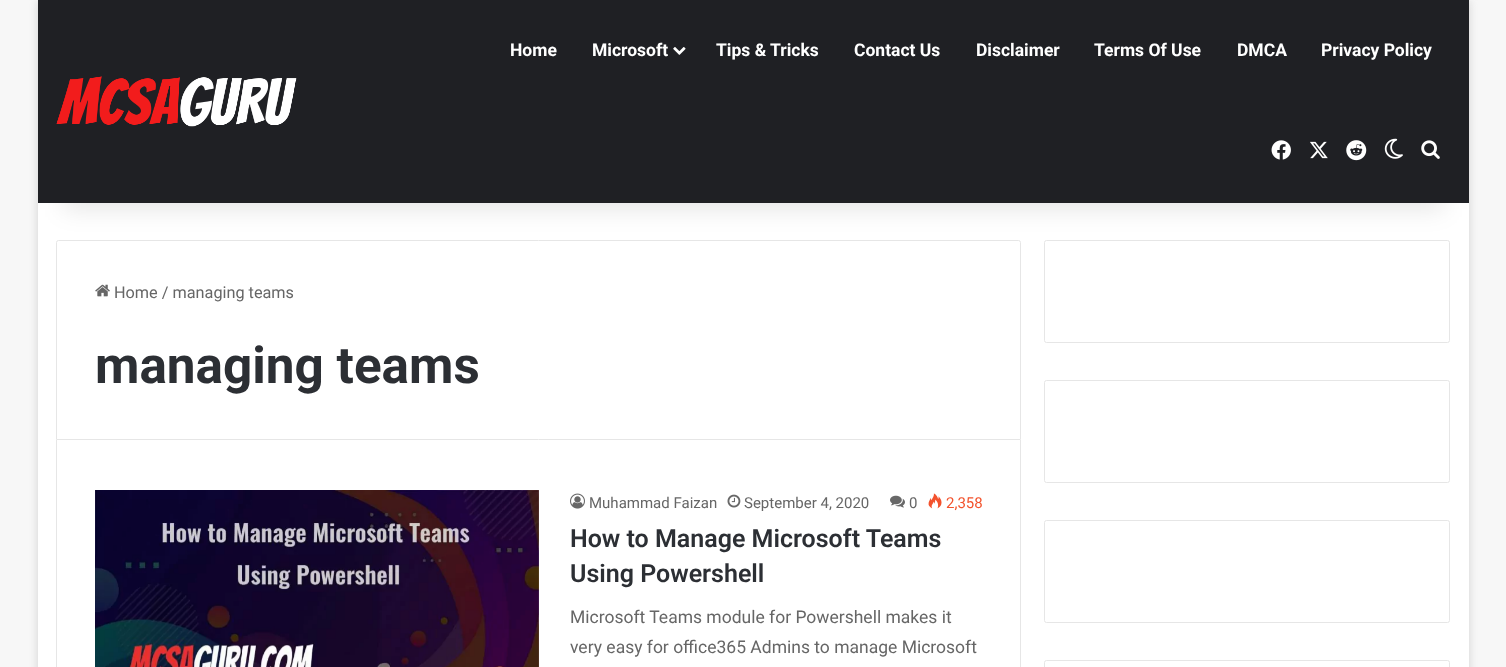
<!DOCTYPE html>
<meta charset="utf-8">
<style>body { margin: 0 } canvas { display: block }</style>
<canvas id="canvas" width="1506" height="667"></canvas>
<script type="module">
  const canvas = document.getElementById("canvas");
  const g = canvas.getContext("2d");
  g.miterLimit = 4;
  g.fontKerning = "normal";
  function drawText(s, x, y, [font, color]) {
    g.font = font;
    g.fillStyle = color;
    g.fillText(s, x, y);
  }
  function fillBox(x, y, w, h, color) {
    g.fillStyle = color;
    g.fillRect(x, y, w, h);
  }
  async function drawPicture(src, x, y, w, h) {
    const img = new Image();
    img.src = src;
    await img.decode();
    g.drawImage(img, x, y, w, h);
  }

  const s1 = ["bold 17.5px Roboto", "#FFFFFF"];
  const s2 = ["16.25px Roboto", "#666666"];
  const s3 = ["bold 51.25px Roboto", "#2C2F34"];
  const s4 = ["15px Roboto", "#666666"];
  const s5 = ["15px Roboto", "#F3522C"];
  const s6 = ["600 25px Roboto", "#2C2F34"];
  const s7 = ["17.5px Roboto", "#666666"];

  fillBox(0, 0, 1506, 667, "#F7F7F7");
  g.fillStyle = "rgba(171, 171, 171, 0.5)";
  g.filter = "blur(4.5px)";
  g.beginPath();
  g.rect(38, 1, 1431, 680);
  g.fill();
  g.filter = "none";
  fillBox(38, 203, 1431, 464, "#FFFFFF");
  g.beginPath();
  g.roundRect(56.5, 240.5, 964, 199, [2, 2, 0, 0]);
  g.strokeStyle = "#E6E6E6";
  g.stroke();
  g.beginPath();
  g.roundRect(1044.5, 240.5, 405, 102, 2);
  g.stroke();
  g.fillStyle = "rgba(0, 0, 0, 0.1)";
  g.filter = "blur(12.5px)";
  g.beginPath();
  g.rect(63, 56, 1381, 153);
  g.fill();
  g.filter = "none";
  fillBox(38, 0, 1431, 203, "#1F2024");
  drawText("Home", 510, 56, s1);
  drawText("Microsoft", 592, 56, s1);
  await drawPicture("pic1.png", 673, 47, 13, 8);
  drawText("Tips & Tricks", 716, 56, s1);
  drawText("Contact Us", 854, 56, s1);
  drawText("Disclaimer", 976, 56, s1);
  drawText("Terms Of Use", 1094, 56, s1);
  drawText("DMCA", 1237, 56, s1);
  drawText("Privacy Policy", 1321, 56, s1);
  await drawPicture("pic2.png", 1271, 140, 20, 20);
  await drawPicture("pic3.png", 1310, 141, 18, 18);
  await drawPicture("pic4.png", 1346, 140, 21, 21);
  await drawPicture("pic5.png", 1384, 138, 19, 21);
  await drawPicture("pic6.png", 1421, 140, 19, 19);
  await drawPicture("pic7.png", 56, 76, 241, 51);
  await drawPicture("pic8.png", 95, 284, 15, 13);
  drawText("Home / managing teams", 114, 298, s2);
  drawText("managing teams", 95, 383, s3);
  fillBox(1020, 440, 1, 227, "#E6E6E6");
  fillBox(56, 440, 1, 227, "#E6E6E6");
  await drawPicture("pic9.png", 95, 490, 444, 177);
  await drawPicture("pic10.png", 570, 493, 15, 16);
  drawText("Muhammad Faizan", 589, 508, s4);
  await drawPicture("pic11.png", 727, 494, 14, 14);
  drawText("September 4, 2020", 744, 508, s4);
  await drawPicture("pic12.png", 890, 495, 15, 13);
  drawText("0", 909, 508, s4);
  await drawPicture("pic13.png", 928, 493, 14, 16);
  drawText("2,358", 946, 508, s5);
  drawText("How to Manage Microsoft Teams", 570, 547, s6);
  drawText("Using Powershell", 570, 582, s6);
  drawText("Microsoft Teams module for Powershell makes it", 570, 623, s7);
  drawText("very easy for office365 Admins to manage Microsoft", 570, 653, s7);
  g.beginPath();
  g.roundRect(1044.5, 380.5, 405, 102, 2);
  g.stroke();
  g.beginPath();
  g.roundRect(1044.5, 520.5, 405, 102, 2);
  g.stroke();
  g.beginPath();
  g.roundRect(1044.5, 660.5, 405, 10, 2);
  g.stroke();
</script>
